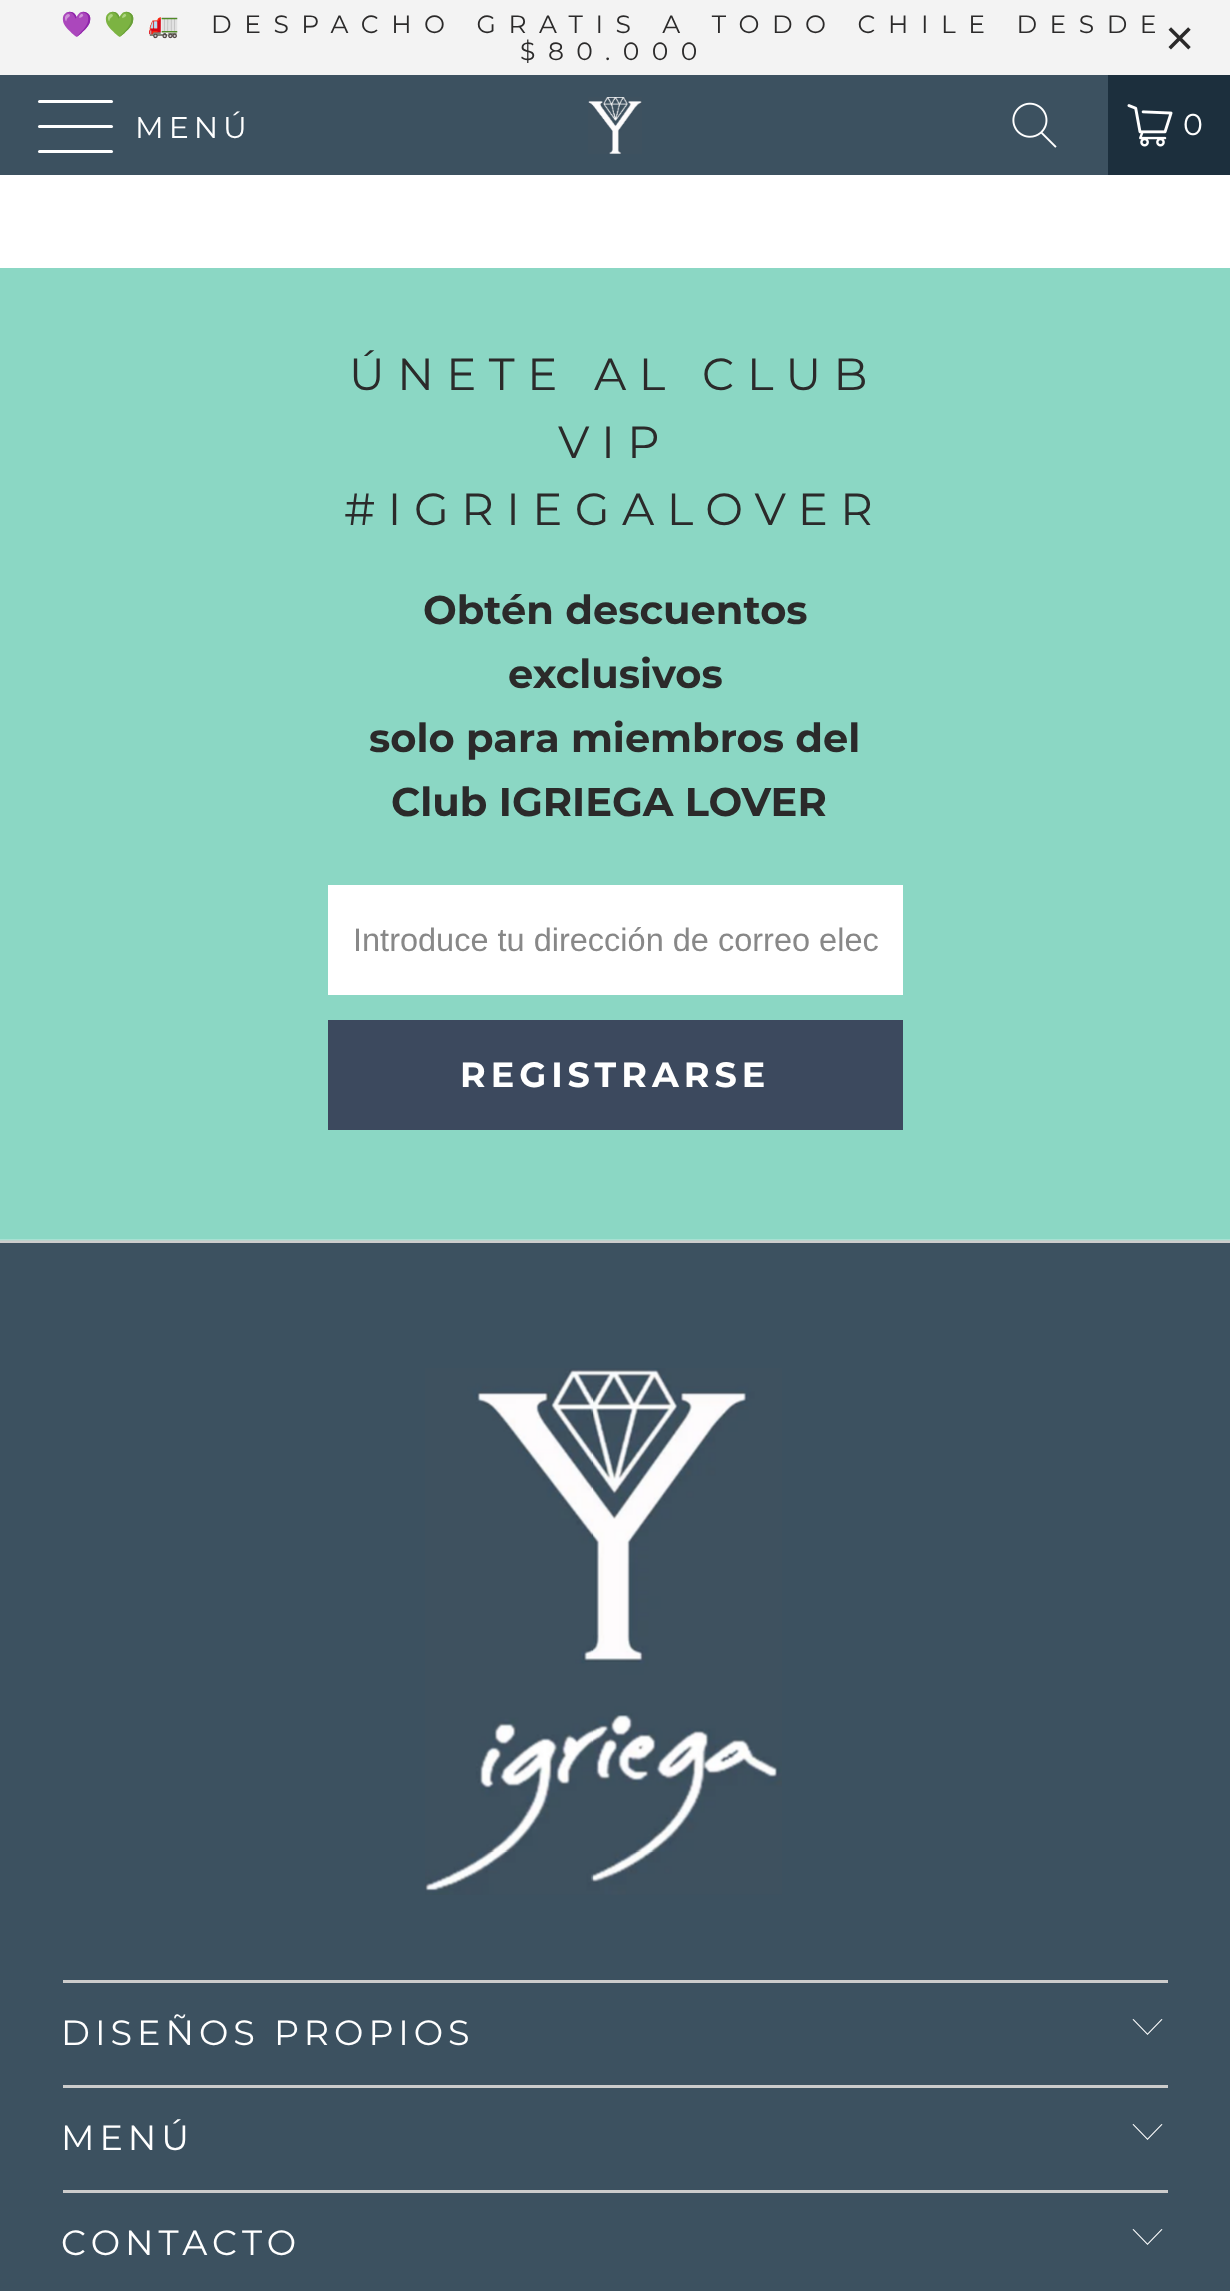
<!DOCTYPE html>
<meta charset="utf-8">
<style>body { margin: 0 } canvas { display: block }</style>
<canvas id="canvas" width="1230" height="2291"></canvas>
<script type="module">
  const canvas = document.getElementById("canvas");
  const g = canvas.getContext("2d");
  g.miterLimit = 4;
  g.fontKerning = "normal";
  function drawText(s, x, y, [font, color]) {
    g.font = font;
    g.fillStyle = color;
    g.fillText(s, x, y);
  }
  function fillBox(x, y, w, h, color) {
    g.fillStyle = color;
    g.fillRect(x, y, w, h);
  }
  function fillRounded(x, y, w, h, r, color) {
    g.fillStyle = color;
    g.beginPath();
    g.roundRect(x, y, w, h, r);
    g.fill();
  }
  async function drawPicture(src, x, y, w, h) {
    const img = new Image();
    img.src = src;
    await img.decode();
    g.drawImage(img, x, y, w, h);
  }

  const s1 = ["25px Noto Color Emoji", "#2B2A2A"];
  const s2 = ["25px Montserrat", "#2B2A2A"];
  const s3 = ["50px Liberation Sans", "#2B2A2A"];
  const s4 = ["30px Montserrat", "#FFFFFF"];
  const s5 = ["45px Montserrat", "#2B2A2A"];
  const s6 = ["bold 40px Montserrat", "#2B2A2A"];
  const s7 = ["32.5px Liberation Sans", "#888888"];
  const s8 = ["bold 35px Montserrat", "#FFFFFF"];
  const s9 = ["35px Montserrat", "#FFFFFF"];

  fillBox(0, 0, 1230, 2291, "#FFFFFF");
  fillBox(0, 0, 1230, 75, "#F3F3F3");
  g.letterSpacing = "12.5px";
  drawText("💜💚🚛", 61, 33, s1);
  drawText("DESPACHO GRATIS A TODO CHILE DESDE", 211, 33, s2);
  drawText("$80.000", 520, 60, s2);
  drawText("×", 1165, 55, s3);
  fillBox(0, 75, 1108, 100, "#3C5160");
  fillRounded(38, 100, 75, 3, 1.5, "#FFFFFF");
  fillRounded(38, 125, 75, 3, 1.5, "#FFFFFF");
  fillRounded(38, 150, 75, 3, 1.5, "#FFFFFF");
  g.letterSpacing = "5px";
  drawText("MENÚ", 135, 138, s4);
  await drawPicture("pic1.png", 588, 97, 54, 57);
  await drawPicture("pic2.png", 1012, 102, 45, 46);
  fillBox(1108, 75, 122, 100, "#1C2F3D");
  await drawPicture("pic3.png", 1127, 104, 46, 43);
  g.letterSpacing = "2px";
  drawText("0", 1183, 135, s4);
  fillBox(0, 1240, 1230, 3, "#CCCCCC");
  await drawPicture("pic4.png", 0, 268, 1230, 973);
  g.letterSpacing = "12.5px";
  drawText("ÚNETE AL CLUB", 349, 390, s5);
  drawText("VIP", 558, 458, s5);
  drawText("#IGRIEGALOVER", 344, 525, s5);
  g.letterSpacing = "0px";
  drawText("Obtén descuentos", 423, 624, s6);
  drawText("exclusivos", 508, 688, s6);
  drawText("solo para miembros del", 369, 752, s6);
  drawText("Club IGRIEGA LOVER", 391, 816, s6);
  fillBox(328, 885, 575, 110, "#FFFFFF");
  drawText("Introduce tu dirección de correo elec", 353, 951, s7);
  fillBox(328, 1020, 575, 110, "#3C495E");
  g.letterSpacing = "5px";
  drawText("REGISTRARSE", 460, 1087, s8);
  fillBox(0, 1243, 1230, 1048, "#3C5160");
  await drawPicture("pic5.png", 425, 1368, 357, 527);
  fillBox(63, 1980, 1105, 3, "#CCCCCC");
  drawText("DISEÑOS PROPIOS", 61, 2045, s9);
  g.beginPath();
  g.moveTo(1147.5, 2035);
  g.lineTo(1132.5, 2019.5);
  g.lineTo(1133.5, 2019);
  g.lineTo(1147.5, 2033.5);
  g.lineTo(1161.5, 2019);
  g.lineTo(1162.5, 2019.5);
  g.closePath();
  g.fill();
  fillBox(63, 2085, 1105, 3, "#CCCCCC");
  drawText("MENÚ", 61, 2150, s9);
  g.beginPath();
  g.moveTo(1147.5, 2140);
  g.lineTo(1132.5, 2124.5);
  g.lineTo(1133.5, 2124);
  g.lineTo(1147.5, 2138.5);
  g.lineTo(1161.5, 2124);
  g.lineTo(1162.5, 2124.5);
  g.closePath();
  g.fill();
  fillBox(63, 2190, 1105, 3, "#CCCCCC");
  drawText("CONTACTO", 61, 2255, s9);
  g.beginPath();
  g.moveTo(1147.5, 2245);
  g.lineTo(1132.5, 2229.5);
  g.lineTo(1133.5, 2229);
  g.lineTo(1147.5, 2243.5);
  g.lineTo(1161.5, 2229);
  g.lineTo(1162.5, 2229.5);
  g.closePath();
  g.fill();
</script>
